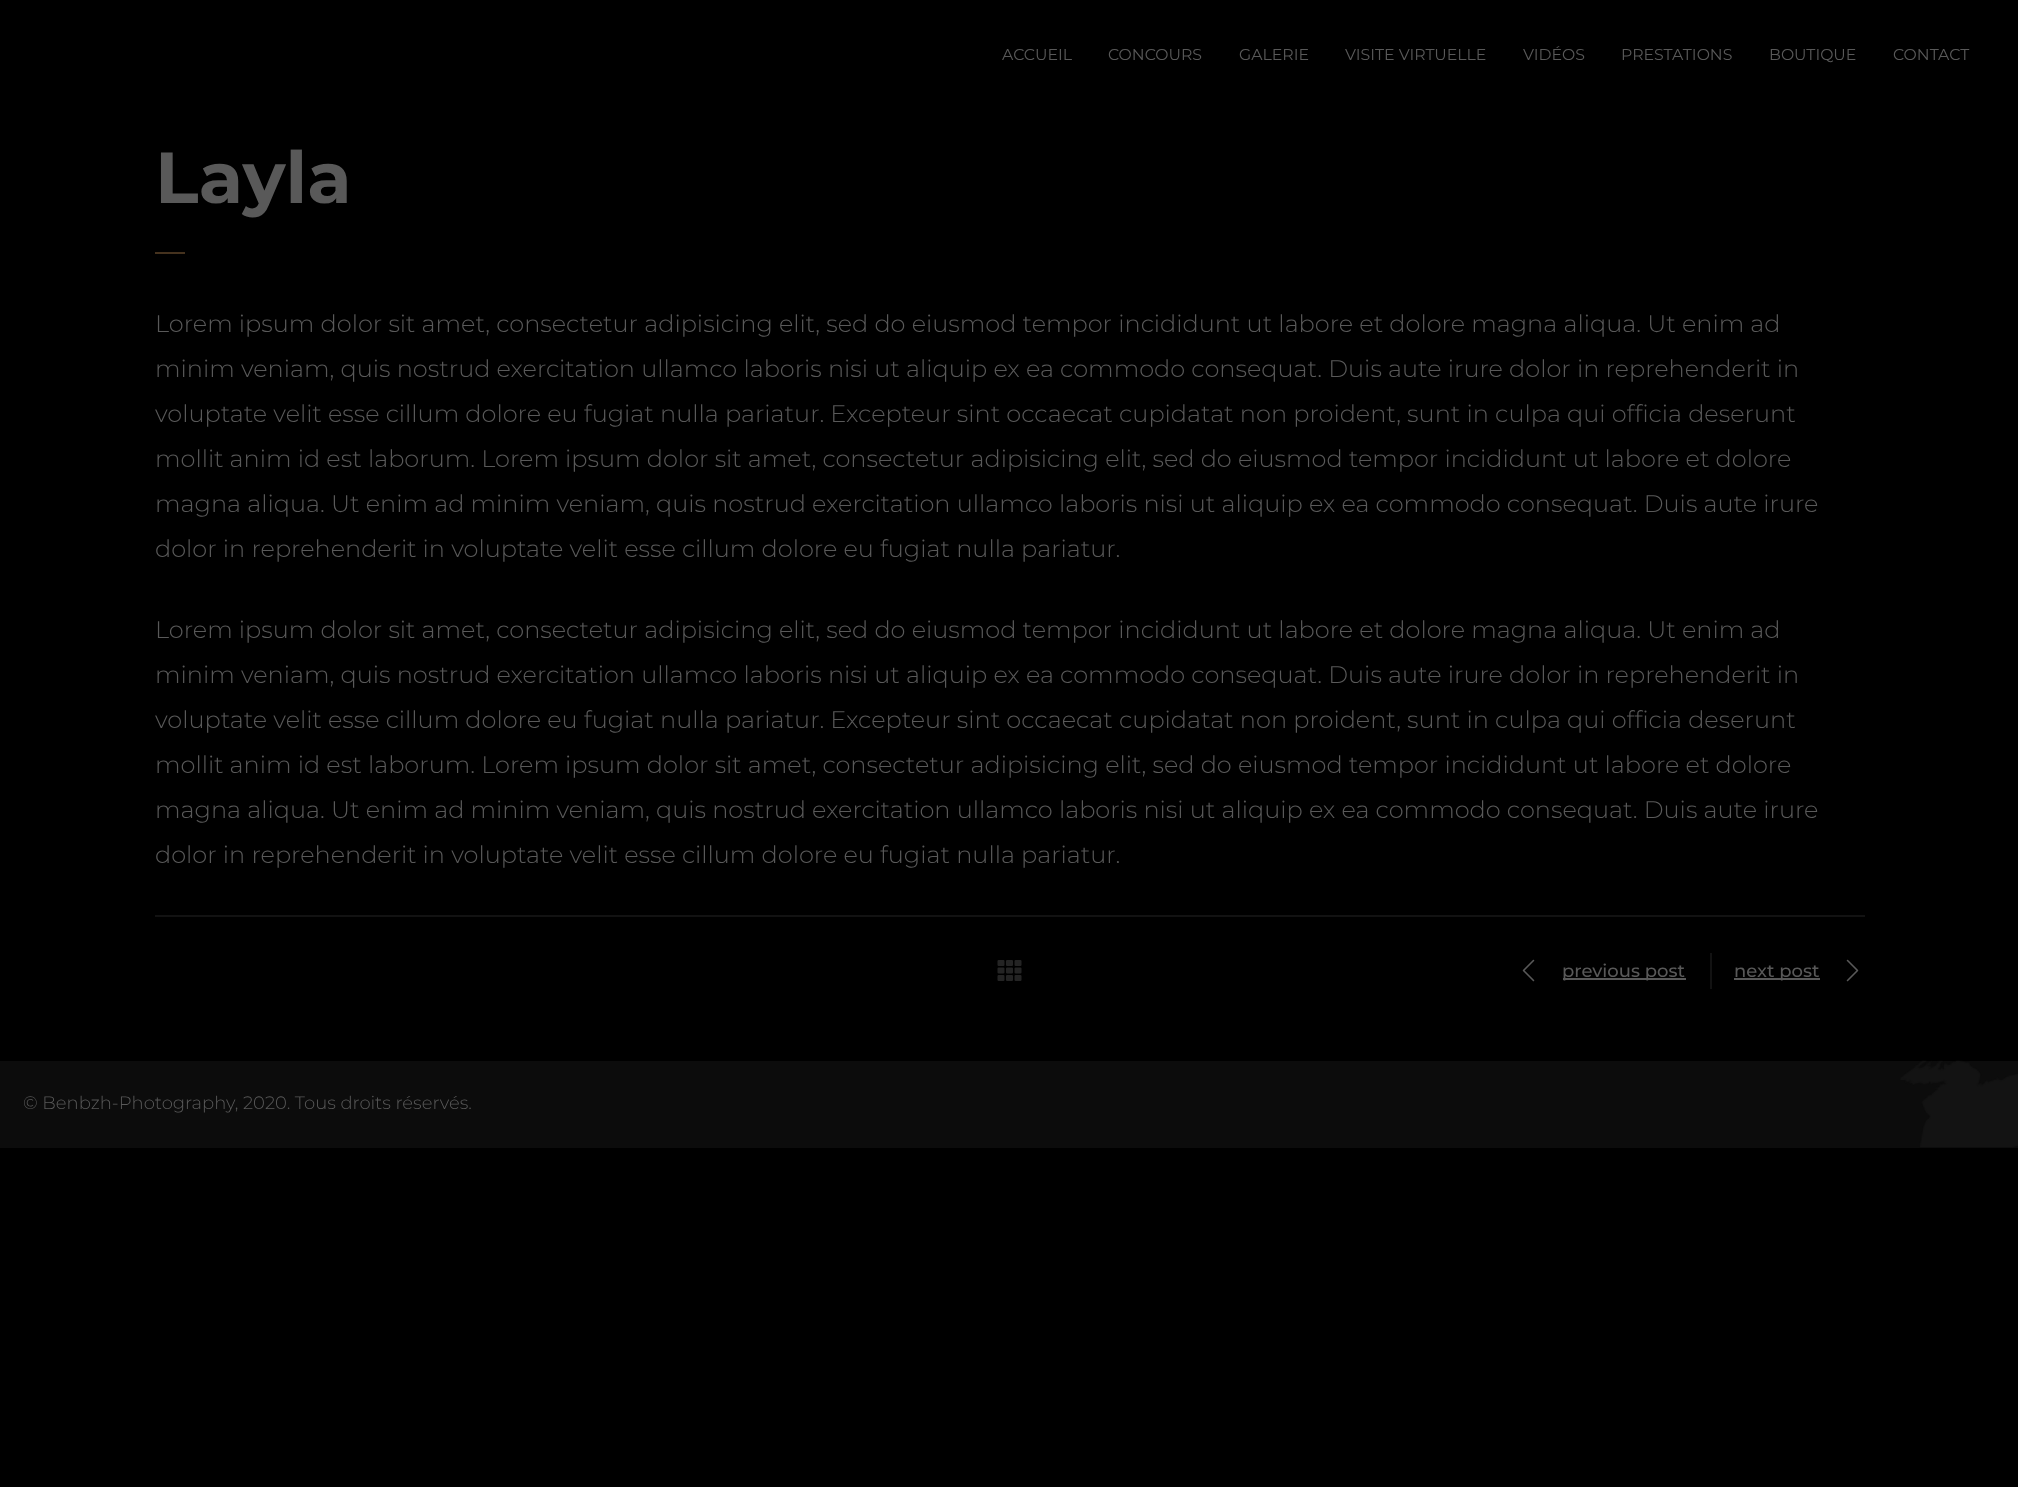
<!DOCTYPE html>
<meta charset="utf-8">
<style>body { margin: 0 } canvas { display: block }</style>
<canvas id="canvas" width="2018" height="1487"></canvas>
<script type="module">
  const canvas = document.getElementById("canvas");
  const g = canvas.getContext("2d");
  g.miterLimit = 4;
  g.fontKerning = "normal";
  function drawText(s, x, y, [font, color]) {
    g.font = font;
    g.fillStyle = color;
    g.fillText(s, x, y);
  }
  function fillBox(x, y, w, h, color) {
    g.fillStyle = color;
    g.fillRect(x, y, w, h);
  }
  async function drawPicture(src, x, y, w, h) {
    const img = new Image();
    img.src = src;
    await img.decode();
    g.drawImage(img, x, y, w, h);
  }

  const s1 = ["15.75px Montserrat", "#595959"];
  const s2 = ["bold 72px Montserrat", "#595959"];
  const s3 = ["300 24px Montserrat", "#595959"];
  const s4 = ["500 18px Montserrat", "#595959"];
  const s5 = ["300 18px Montserrat", "#595959"];

  fillBox(0, 0, 2018, 1487, "#000000");
  drawText("ACCUEIL", 1002, 60, s1);
  drawText("CONCOURS", 1108, 60, s1);
  drawText("GALERIE", 1239, 60, s1);
  drawText("VISITE VIRTUELLE", 1345, 60, s1);
  drawText("VIDÉOS", 1523, 60, s1);
  drawText("PRESTATIONS", 1621, 60, s1);
  drawText("BOUTIQUE", 1769, 60, s1);
  drawText("CONTACT", 1893, 60, s1);
  drawText("Layla", 155, 203, s2);
  fillBox(155, 252, 30, 2, "#45321E");
  drawText("Lorem ipsum dolor sit amet, consectetur adipisicing elit, sed do eiusmod tempor incididunt ut labore et dolore magna aliqua. Ut enim ad", 155, 332, s3);
  drawText("minim veniam, quis nostrud exercitation ullamco laboris nisi ut aliquip ex ea commodo consequat. Duis aute irure dolor in reprehenderit in", 155, 377, s3);
  drawText("voluptate velit esse cillum dolore eu fugiat nulla pariatur. Excepteur sint occaecat cupidatat non proident, sunt in culpa qui officia deserunt", 155, 422, s3);
  drawText("mollit anim id est laborum. Lorem ipsum dolor sit amet, consectetur adipisicing elit, sed do eiusmod tempor incididunt ut labore et dolore", 155, 467, s3);
  drawText("magna aliqua. Ut enim ad minim veniam, quis nostrud exercitation ullamco laboris nisi ut aliquip ex ea commodo consequat. Duis aute irure", 155, 512, s3);
  drawText("dolor in reprehenderit in voluptate velit esse cillum dolore eu fugiat nulla pariatur.", 155, 557, s3);
  drawText("Lorem ipsum dolor sit amet, consectetur adipisicing elit, sed do eiusmod tempor incididunt ut labore et dolore magna aliqua. Ut enim ad", 155, 638, s3);
  drawText("minim veniam, quis nostrud exercitation ullamco laboris nisi ut aliquip ex ea commodo consequat. Duis aute irure dolor in reprehenderit in", 155, 683, s3);
  drawText("voluptate velit esse cillum dolore eu fugiat nulla pariatur. Excepteur sint occaecat cupidatat non proident, sunt in culpa qui officia deserunt", 155, 728, s3);
  drawText("mollit anim id est laborum. Lorem ipsum dolor sit amet, consectetur adipisicing elit, sed do eiusmod tempor incididunt ut labore et dolore", 155, 773, s3);
  drawText("magna aliqua. Ut enim ad minim veniam, quis nostrud exercitation ullamco laboris nisi ut aliquip ex ea commodo consequat. Duis aute irure", 155, 818, s3);
  drawText("dolor in reprehenderit in voluptate velit esse cillum dolore eu fugiat nulla pariatur.", 155, 863, s3);
  fillBox(155, 915, 1710, 2, "#121212");
  await drawPicture("pic1.png", 997, 960, 25, 21);
  await drawPicture("pic2.png", 1522, 959, 13, 23);
  fillBox(1563, 978, 123, 2, "#595959");
  drawText("previous post", 1562, 977, s4);
  fillBox(1710, 953, 2, 36, "#121212");
  fillBox(1734, 978, 86, 2, "#595959");
  drawText("next post", 1734, 977, s4);
  await drawPicture("pic3.png", 1846, 959, 13, 23);
  fillBox(0, 1061, 2018, 87, "#0C0C0C");
  await drawPicture("pic4.png", 1900, 1060, 118, 88);
  drawText("© Benbzh-Photography, 2020. Tous droits réservés.", 23, 1109, s5);
</script>
